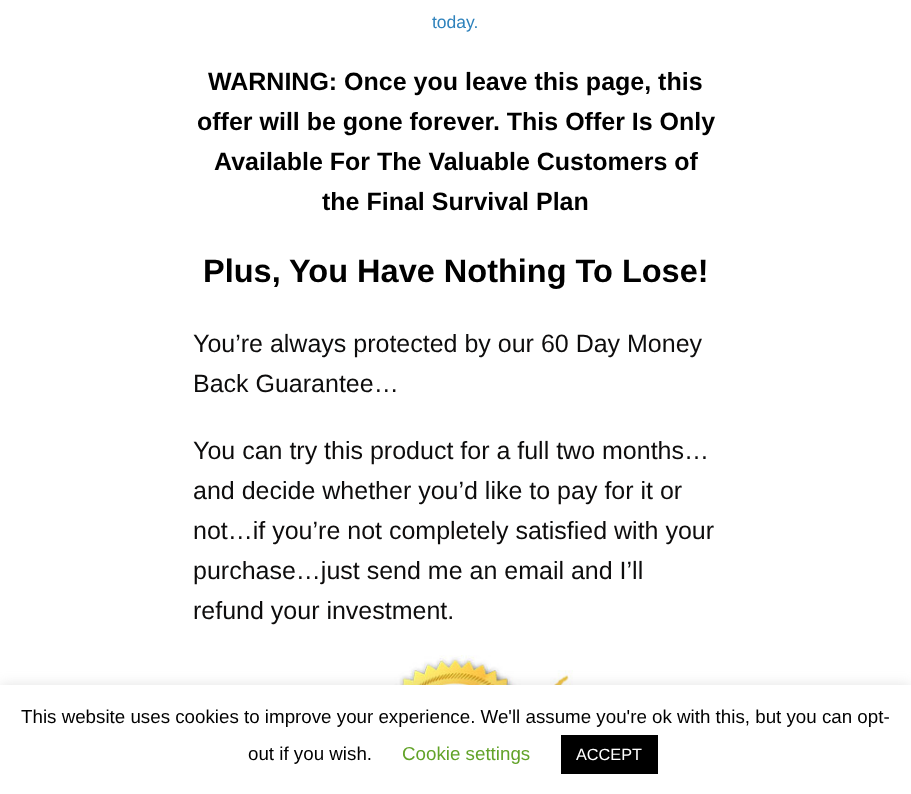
<!DOCTYPE html>
<meta charset="utf-8">
<style>body { margin: 0 } canvas { display: block }</style>
<canvas id="canvas" width="911" height="794"></canvas>
<script type="module">
  const canvas = document.getElementById("canvas");
  const g = canvas.getContext("2d");
  g.miterLimit = 4;
  g.fontKerning = "normal";
  function drawText(s, x, y, [font, color]) {
    g.font = font;
    g.fillStyle = color;
    g.fillText(s, x, y);
  }
  function fillBox(x, y, w, h, color) {
    g.fillStyle = color;
    g.fillRect(x, y, w, h);
  }
  async function drawPicture(src, x, y, w, h) {
    const img = new Image();
    img.src = src;
    await img.decode();
    g.drawImage(img, x, y, w, h);
  }

  const s1 = ["17.5px Liberation Sans", "#2E82BC"];
  const s2 = ["bold 25px Liberation Sans", "#000000"];
  const s3 = ["bold 32.5px Liberation Sans", "#000000"];
  const s4 = ["25px Liberation Sans", "#0D0C0C"];
  const s5 = ["18.75px Liberation Sans", "#000000"];
  const s6 = ["18.75px Liberation Sans", "#62A329"];
  const s7 = ["16.25px Liberation Sans", "#FFFFFF"];

  fillBox(0, 0, 911, 794, "#FFFFFF");
  drawText("today.", 432, 28, s1);
  drawText("WARNING: Once you leave this page, this", 208, 90, s2);
  drawText("offer will be gone forever. This Offer Is Only", 197, 130, s2);
  drawText("Available For The Valuable Customers of", 214, 170, s2);
  drawText("the Final Survival Plan", 322, 210, s2);
  drawText("Plus, You Have Nothing To Lose!", 203, 282, s3);
  drawText("You’re always protected by our 60 Day Money", 193, 352, s4);
  drawText("Back Guarantee…", 193, 392, s4);
  drawText("You can try this product for a full two months…", 193, 459, s4);
  drawText("and decide whether you’d like to pay for it or", 193, 499, s4);
  drawText("not…if you’re not completely satisfied with your", 193, 539, s4);
  drawText("purchase…just send me an email and I’ll", 193, 579, s4);
  drawText("refund your investment.", 193, 619, s4);
  await drawPicture("pic1.png", 195, 655, 519, 30);
  g.fillStyle = "rgba(172, 171, 171, 0.3)";
  g.filter = "blur(6px)";
  g.beginPath();
  g.rect(0, 684, 911, 110);
  g.fill();
  g.filter = "none";
  fillBox(0, 685, 911, 109, "#FFFFFF");
  drawText("This website uses cookies to improve your experience. We'll assume you're ok with this, but you can opt-", 21, 723, s5);
  drawText("out if you wish.", 248, 760, s5);
  drawText("Cookie settings", 402, 760, s6);
  fillBox(561, 735, 97, 39, "#000000");
  drawText("ACCEPT", 576, 760, s7);
</script>
